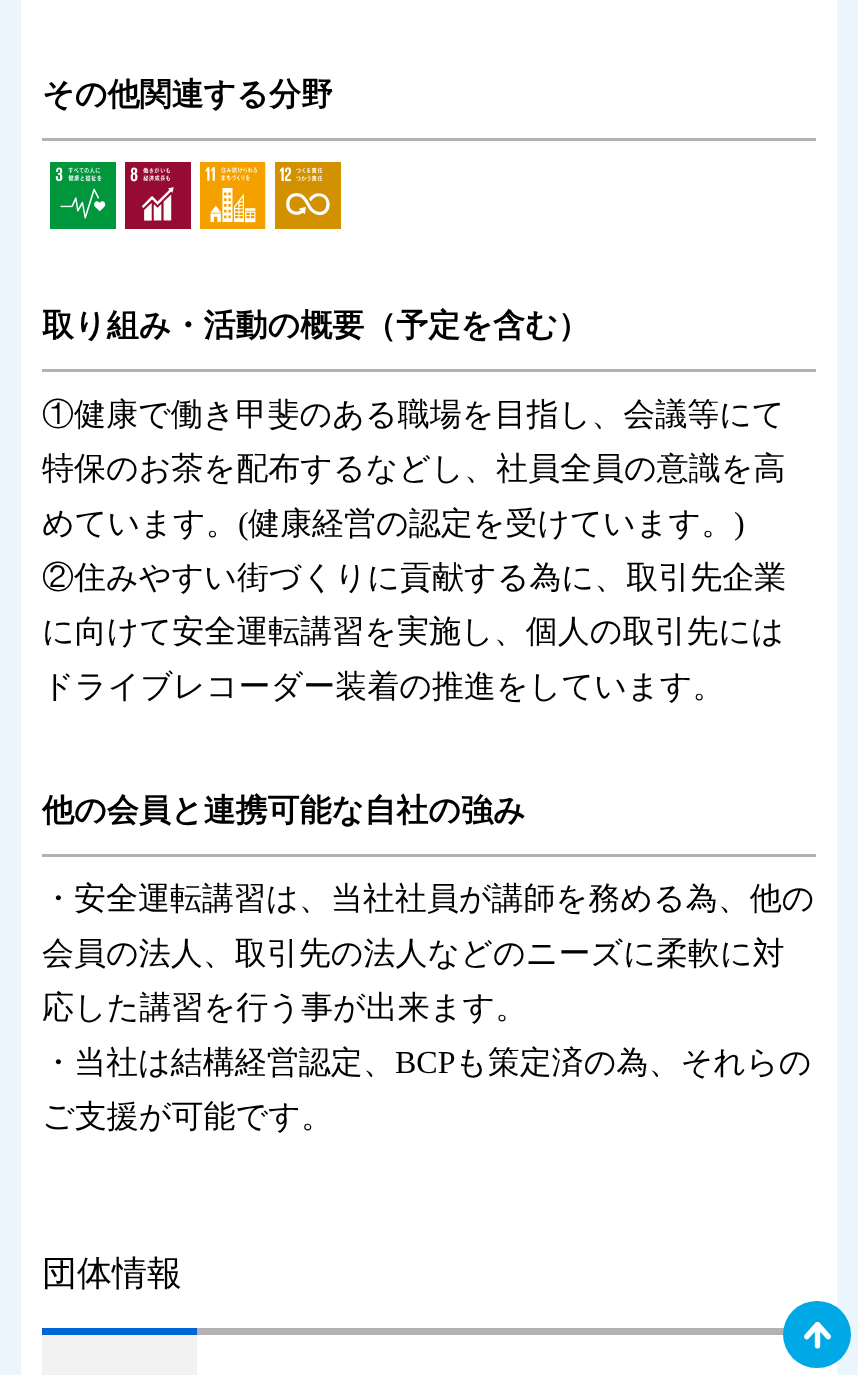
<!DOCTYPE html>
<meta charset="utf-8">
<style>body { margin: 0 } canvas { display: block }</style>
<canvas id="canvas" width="858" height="1375"></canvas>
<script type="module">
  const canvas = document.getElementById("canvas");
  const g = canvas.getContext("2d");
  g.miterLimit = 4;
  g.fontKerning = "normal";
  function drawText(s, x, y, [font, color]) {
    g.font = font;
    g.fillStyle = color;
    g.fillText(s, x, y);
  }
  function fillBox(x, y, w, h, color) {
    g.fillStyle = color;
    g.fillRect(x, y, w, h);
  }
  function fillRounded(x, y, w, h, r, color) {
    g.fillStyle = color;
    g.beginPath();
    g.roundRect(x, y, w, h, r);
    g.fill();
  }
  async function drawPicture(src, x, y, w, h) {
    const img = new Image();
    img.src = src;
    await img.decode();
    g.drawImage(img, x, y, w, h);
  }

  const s1 = ["bold 32px WenQuanYi Zen Hei", "#000000"];
  const s2 = ["500 32px WenQuanYi Zen Hei", "#000000"];
  const s3 = ["32px Liberation Serif", "#000000"];
  const s4 = ["500 35px WenQuanYi Zen Hei", "#000000"];

  fillBox(0, 0, 858, 1375, "#EBF6FF");
  fillBox(21, 0, 816, 1375, "#FFFFFF");
  fillBox(42, 138, 774, 3, "#B2B2B2");
  drawText("その他関連する分野", 42, 105, s1);
  await drawPicture("pic1.png", 50, 162, 66, 67);
  await drawPicture("pic2.png", 125, 162, 66, 67);
  await drawPicture("pic3.png", 200, 162, 66, 67);
  await drawPicture("pic4.png", 275, 162, 66, 67);
  fillBox(42, 369, 774, 3, "#B2B2B2");
  drawText("取り組み・活動の概要（予定を含む）", 42, 336, s1);
  drawText("①健康で働き甲斐のある職場を目指し、会議等にて", 42, 425, s2);
  drawText("特保のお茶を配布するなどし、社員全員の意識を高", 42, 479, s2);
  drawText("めています。", 42, 534, s2);
  drawText("(", 238, 534, s3);
  drawText("健康経営の認定を受けています。", 248, 534, s2);
  drawText(")", 734, 534, s3);
  drawText("②住みやすい街づくりに貢献する為に、取引先企業", 42, 588, s2);
  drawText("に向けて安全運転講習を実施し、個人の取引先には", 42, 642, s2);
  drawText("ドライブレコーダー装着の推進をしています。", 42, 697, s2);
  fillBox(42, 854, 774, 3, "#B2B2B2");
  drawText("他の会員と連携可能な自社の強み", 42, 821, s1);
  drawText("・安全運転講習は、当社社員が講師を務める為、他の", 42, 909, s2);
  drawText("会員の法人、取引先の法人などのニーズに柔軟に対", 42, 964, s2);
  drawText("応した講習を行う事が出来ます。", 42, 1018, s2);
  drawText("・当社は結構経営認定、", 42, 1073, s2);
  drawText("BCP", 395, 1073, s3);
  drawText("も策定済の為、それらの", 455, 1073, s2);
  drawText("ご支援が可能です。", 42, 1127, s2);
  fillBox(42, 1328, 155, 7, "#0064D9");
  drawText("団体情報", 42, 1285, s4);
  fillBox(197, 1328, 587, 7, "#B2B2B2");
  fillBox(42, 1335, 155, 40, "#F2F2F2");
  fillRounded(783, 1301, 68, 67, 33.5, "#00A9E5");
  await drawPicture("pic5.png", 804, 1322, 27, 27);
</script>
